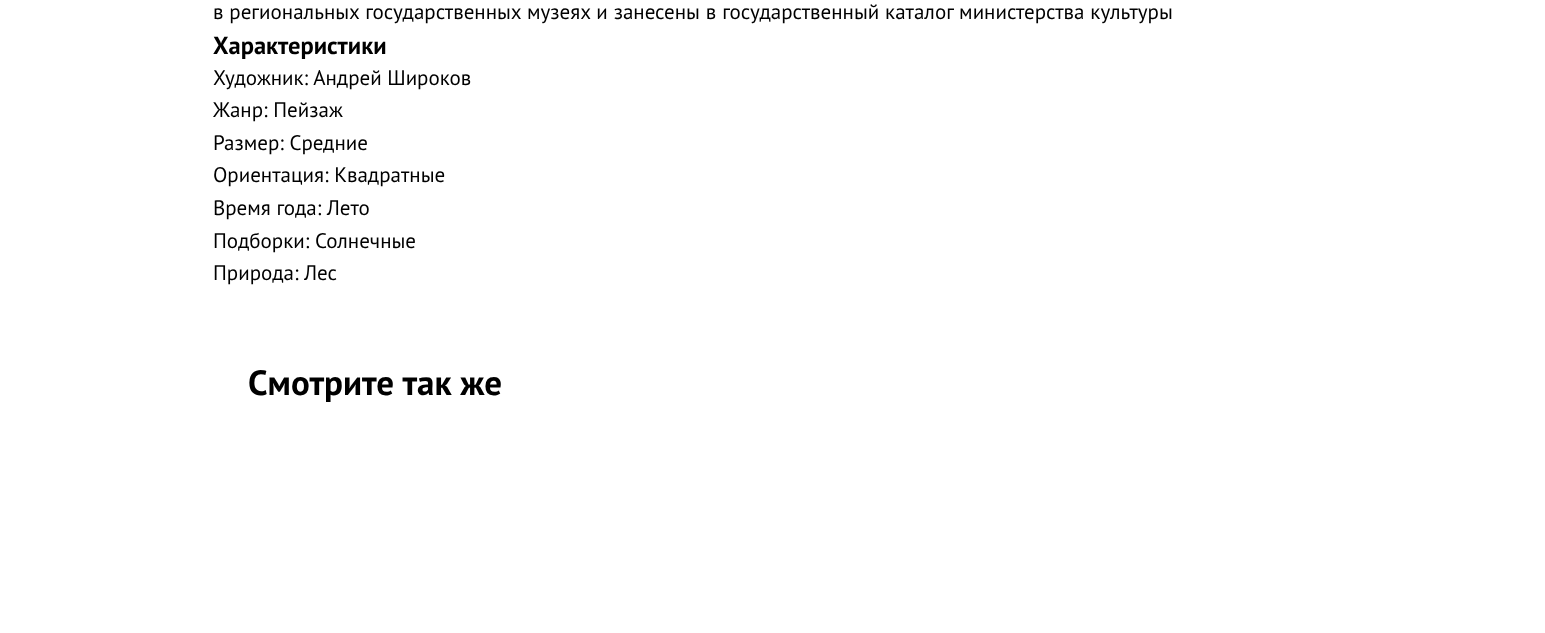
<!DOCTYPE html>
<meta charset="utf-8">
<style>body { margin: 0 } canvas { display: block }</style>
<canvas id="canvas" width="1545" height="633"></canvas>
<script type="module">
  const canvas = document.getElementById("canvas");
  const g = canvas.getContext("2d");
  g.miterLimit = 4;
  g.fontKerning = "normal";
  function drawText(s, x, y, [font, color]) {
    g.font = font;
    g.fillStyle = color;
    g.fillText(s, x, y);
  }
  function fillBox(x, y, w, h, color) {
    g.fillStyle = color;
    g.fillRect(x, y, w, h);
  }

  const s1 = ["21px PT Sans", "#000000"];
  const s2 = ["bold 24.5px PT Sans", "#000000"];
  const s3 = ["bold 35px PT Sans", "#000000"];

  fillBox(0, 0, 1545, 633, "#FFFFFF");
  g.wordSpacing = "0.25px";
  drawText("в региональных государственных музеях и занесены в государственный каталог министерства культуры", 213, 19, s1);
  g.wordSpacing = "0px";
  drawText("Характеристики", 213, 54, s2);
  drawText("Художник: Андрей Широков", 213, 85, s1);
  drawText("Жанр: Пейзаж", 213, 117, s1);
  drawText("Размер: Средние", 213, 150, s1);
  drawText("Ориентация: Квадратные", 213, 182, s1);
  drawText("Время года: Лето", 213, 215, s1);
  drawText("Подборки: Солнечные", 213, 248, s1);
  drawText("Природа: Лес", 213, 280, s1);
  drawText("Смотрите так же", 248, 395, s3);
</script>
